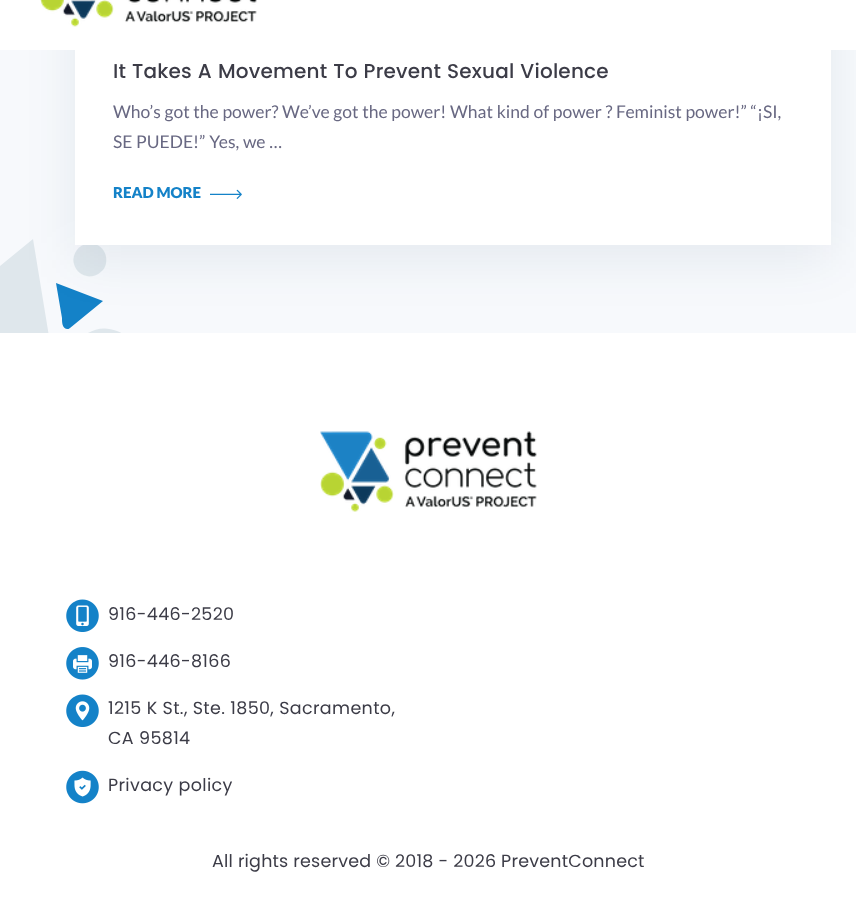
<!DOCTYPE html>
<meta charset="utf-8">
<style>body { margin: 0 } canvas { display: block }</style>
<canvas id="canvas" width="856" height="912"></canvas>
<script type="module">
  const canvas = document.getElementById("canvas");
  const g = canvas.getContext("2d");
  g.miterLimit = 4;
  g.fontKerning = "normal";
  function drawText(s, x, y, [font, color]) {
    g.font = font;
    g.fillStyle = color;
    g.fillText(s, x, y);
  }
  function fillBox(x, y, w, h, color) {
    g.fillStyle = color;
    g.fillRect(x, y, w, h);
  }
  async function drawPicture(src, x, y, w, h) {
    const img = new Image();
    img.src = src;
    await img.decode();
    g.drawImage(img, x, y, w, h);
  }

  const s1 = ["500 20px Poppins", "#3C3C47"];
  const s2 = ["17.5px Lato", "#686882"];
  const s3 = ["900 15px Lato", "#1482C8"];
  const s4 = ["17.5px Poppins", "#3C3C47"];

  fillBox(0, 0, 856, 912, "#F7F9FC");
  g.fillStyle = "#DFE7EC";
  g.beginPath();
  g.moveTo(-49, 328);
  g.bezierCurveTo(-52, 327, -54, 325, -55, 322);
  g.bezierCurveTo(-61, 310, -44, 302, -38, 297);
  g.lineTo(33, 239);
  g.lineTo(54, 367);
  g.closePath();
  g.fill();
  await drawPicture("pic3.png", 73, 245, 34, 32);
  g.beginPath();
  g.moveTo(93, 394);
  g.bezierCurveTo(85, 391, 79, 386, 75, 379);
  g.bezierCurveTo(60, 351, 88, 319, 117, 331);
  g.bezierCurveTo(150, 344, 143, 393, 108, 396);
  g.bezierCurveTo(103, 396, 98, 396, 93, 394);
  g.closePath();
  g.fill();
  g.fillStyle = "#1482C8";
  g.beginPath();
  g.moveTo(70, 328);
  g.bezierCurveTo(69, 329, 68, 329, 67, 329);
  g.bezierCurveTo(62, 328, 62, 322, 62, 318);
  g.lineTo(56, 283);
  g.lineTo(103, 301);
  g.closePath();
  g.fill();
  g.fillStyle = "rgba(17, 57, 91, 0.08)";
  g.filter = "blur(25px)";
  g.beginPath();
  g.rect(75, -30, 756, 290);
  g.fill();
  g.filter = "none";
  fillBox(0, 0, 856, 50, "#FFFFFF");
  await drawPicture("pic1.png", 40, 0, 217, 27);
  fillBox(75, 50, 756, 195, "#FFFFFF");
  g.letterSpacing = "0.2px";
  g.wordSpacing = "0.5px";
  drawText("It Takes A Movement To Prevent Sexual Violence", 113, 78, s1);
  g.letterSpacing = "0px";
  g.wordSpacing = "0.3px";
  drawText("Who’s got the power? We’ve got the power! What kind of power ? Feminist power!” “¡SI,", 113, 118, s2);
  drawText("SE PUEDE!” Yes, we …", 113, 148, s2);
  g.wordSpacing = "0px";
  drawText("READ MORE", 113, 198, s3);
  await drawPicture("pic2.png", 210, 189, 32, 10);
  fillBox(0, 333, 856, 579, "#FFFFFF");
  await drawPicture("pic4.png", 320, 431, 217, 81);
  await drawPicture("pic5.png", 66, 599, 33, 33);
  g.letterSpacing = "0.35px";
  drawText("916-446-2520", 108, 620, s4);
  await drawPicture("pic6.png", 66, 647, 33, 33);
  drawText("916-446-8166", 108, 667, s4);
  await drawPicture("pic7.png", 66, 694, 33, 33);
  drawText("1215 K St., Ste. 1850, Sacramento,", 108, 714, s4);
  drawText("CA 95814", 108, 744, s4);
  await drawPicture("pic8.png", 66, 770, 33, 34);
  drawText("Privacy policy", 108, 791, s4);
  g.letterSpacing = "0.2px";
  drawText("All rights reserved © 2018 - 2026 PreventConnect", 212, 867, s4);
</script>
